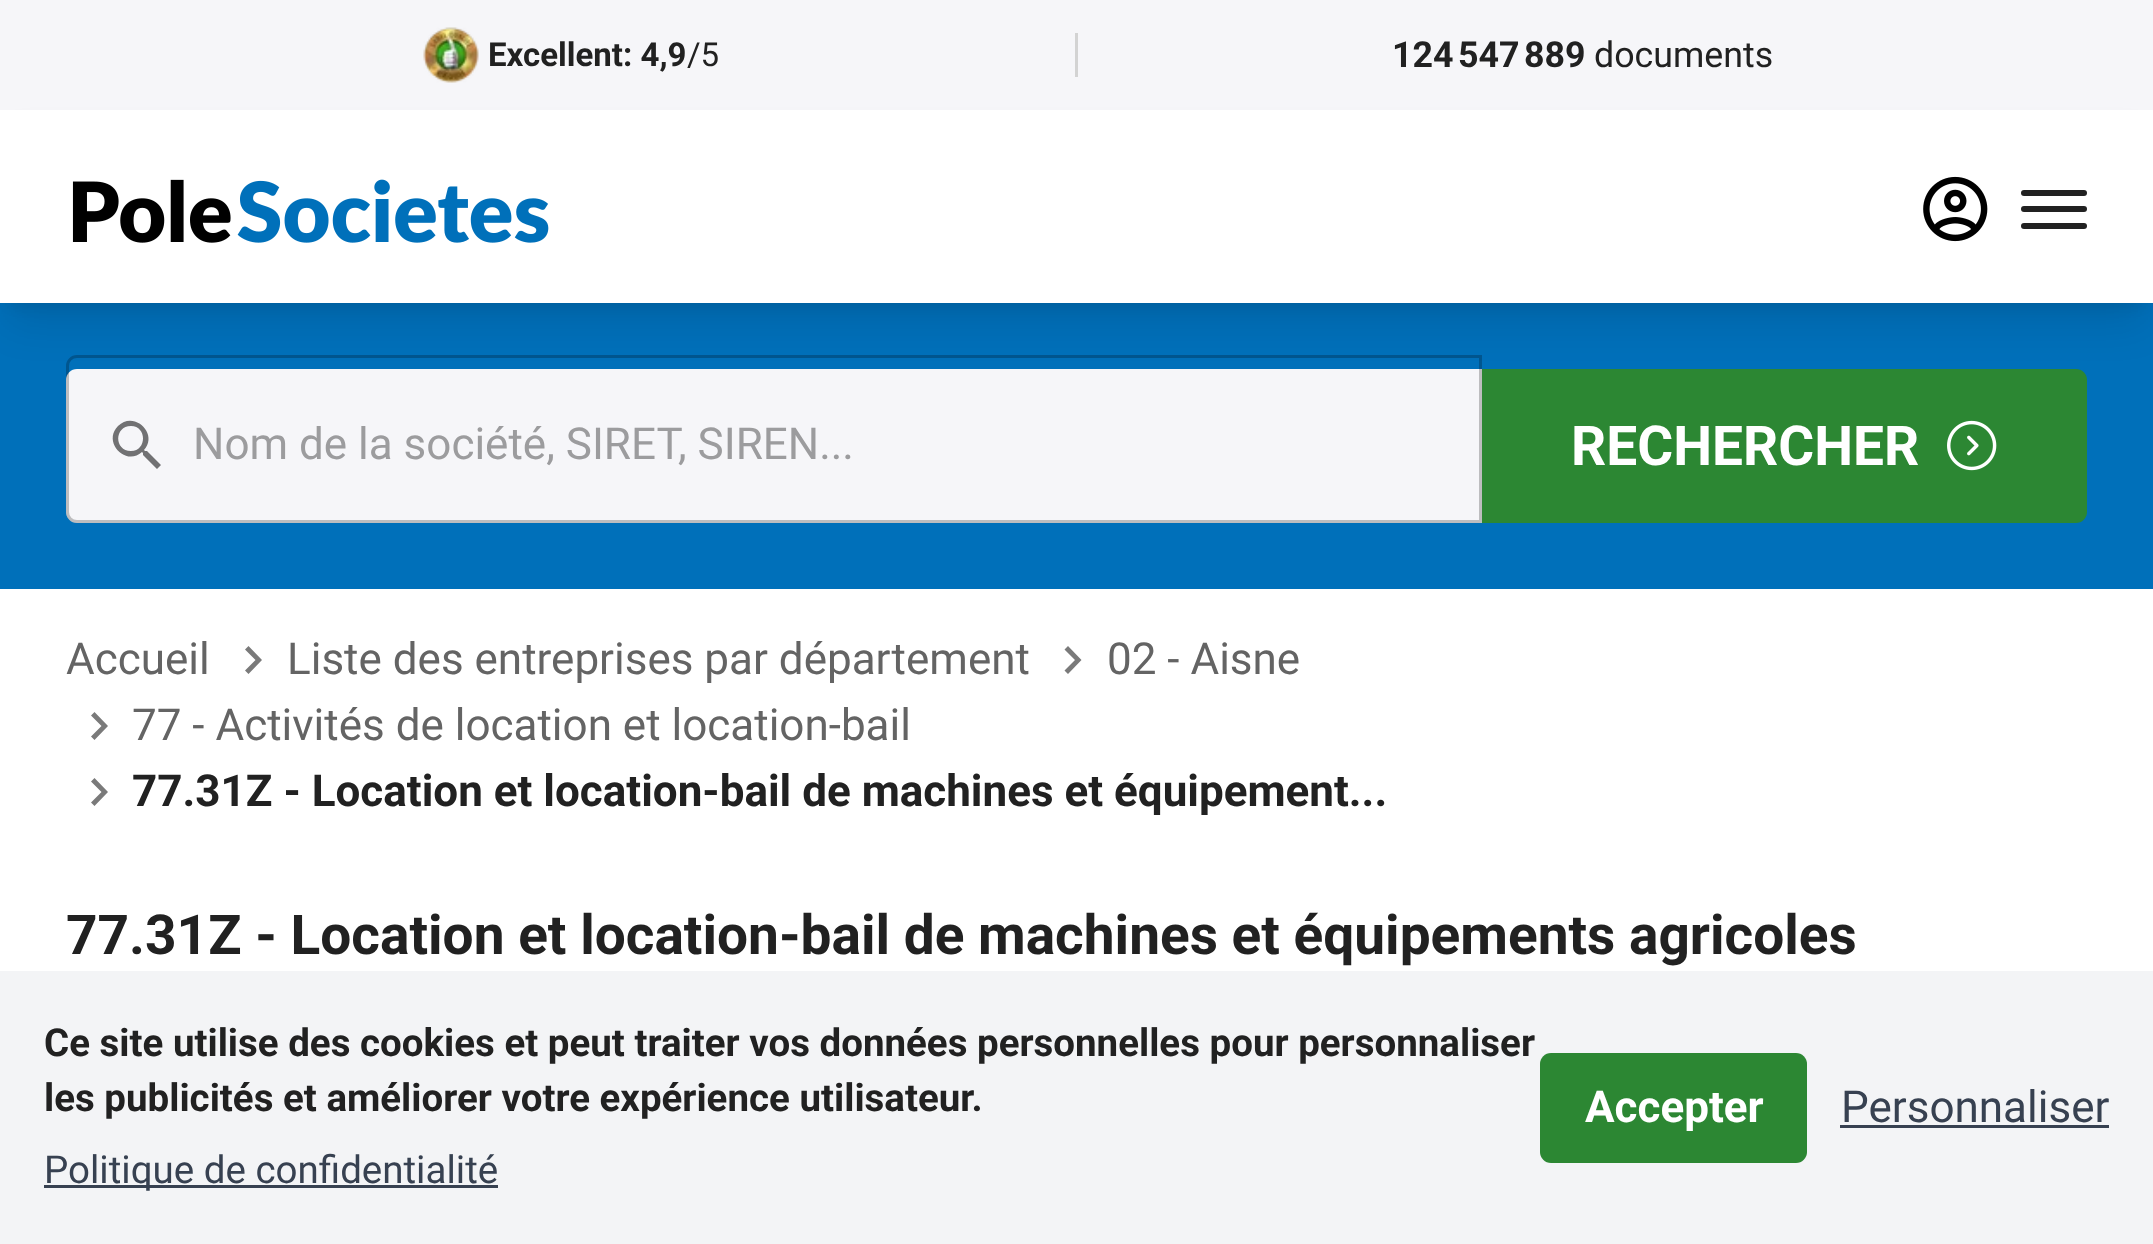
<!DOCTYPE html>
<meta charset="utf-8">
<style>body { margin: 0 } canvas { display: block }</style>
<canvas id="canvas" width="2153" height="1244"></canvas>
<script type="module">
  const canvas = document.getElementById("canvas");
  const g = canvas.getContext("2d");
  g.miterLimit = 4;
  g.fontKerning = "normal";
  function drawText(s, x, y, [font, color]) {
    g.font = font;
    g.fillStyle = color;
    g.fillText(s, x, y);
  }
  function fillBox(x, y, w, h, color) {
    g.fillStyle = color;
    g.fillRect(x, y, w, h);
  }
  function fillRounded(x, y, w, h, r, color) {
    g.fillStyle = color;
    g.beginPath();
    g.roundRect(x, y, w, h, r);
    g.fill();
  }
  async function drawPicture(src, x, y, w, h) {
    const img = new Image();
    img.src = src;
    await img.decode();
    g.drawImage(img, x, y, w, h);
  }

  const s1 = ["bold 33px Roboto", "#212121"];
  const s2 = ["33px Roboto", "#212121"];
  const s3 = ["bold 35.75px Roboto", "#212121"];
  const s4 = ["35.75px Roboto", "#212121"];
  const s5 = ["44px Roboto", "#9C9C9E"];
  const s6 = ["bold 55px Roboto", "#FFFFFF"];
  const s7 = ["44px Roboto", "#646464"];
  const s8 = ["bold 44px Roboto", "#212121"];
  const s9 = ["bold 55px Roboto", "#212121"];
  const s10 = ["bold 38.5px Roboto", "#212121"];
  const s11 = ["38.5px Roboto", "#374151"];
  const s12 = ["bold 44px Roboto", "#FFFFFF"];
  const s13 = ["44px Roboto", "#374151"];

  fillBox(0, 0, 2153, 1244, "#F6F6F9");
  await drawPicture("pic1.png", 423, 27, 56, 56);
  drawText("Excellent: 4,9", 488, 66, s1);
  drawText("/5", 687, 66, s2);
  fillBox(1075, 33, 3, 44, "#D3D3D3");
  drawText("124 547 889", 1392, 67, s3);
  drawText("documents", 1594, 67, s4);
  fillBox(0, 303, 2153, 286, "#0070BA");
  g.fillStyle = "rgba(0, 0, 0, 0.1)";
  g.filter = "blur(8px)";
  g.beginPath();
  g.rect(11, 132, 2131, 171);
  g.fill();
  g.filter = "none";
  g.fillStyle = "#F6F6F9";
  g.beginPath();
  g.roundRect(66, 369, 1416, 154, [11, 0, 0, 11]);
  g.fill();
  g.fillStyle = "#717173";
  g.beginPath();
  g.moveTo(147, 451);
  g.lineTo(145, 451);
  g.lineTo(144, 450);
  g.bezierCurveTo(159, 434, 134, 410, 118, 426);
  g.bezierCurveTo(102, 442, 126, 467, 142, 452);
  g.lineTo(143, 453);
  g.lineTo(143, 455);
  g.lineTo(157, 469);
  g.lineTo(161, 465);
  g.closePath();
  g.moveTo(131, 451);
  g.bezierCurveTo(114, 451, 114, 426, 131, 426);
  g.bezierCurveTo(147, 426, 147, 451, 131, 451);
  g.closePath();
  g.fill();
  g.beginPath();
  g.roundRect(67.5, 356.5, 1413, 165, [9.5, 0, 0, 9.5]);
  g.strokeStyle = "rgba(0, 0, 0, 0.23)";
  g.lineWidth = 3;
  g.stroke();
  g.fillStyle = "#2C8733";
  g.beginPath();
  g.roundRect(1482, 369, 605, 154, [0, 11, 11, 0]);
  g.fill();
  g.fillStyle = "rgba(0, 0, 0, 0.1)";
  g.filter = "blur(20.5px)";
  g.beginPath();
  g.rect(8, 146, 2137, 176);
  g.fill();
  g.filter = "none";
  fillBox(0, 110, 2153, 193, "#FFFFFF");
  await drawPicture("pic2.png", 72, 179, 477, 64);
  await drawPicture("pic3.png", 1923, 176, 65, 66);
  fillRounded(2021, 190, 66, 6, 3, "#212121");
  fillRounded(2021, 206, 66, 6, 3, "#212121");
  fillRounded(2021, 223, 66, 6, 3, "#212121");
  fillBox(0, 589, 2153, 382, "#FFFFFF");
  drawText("Nom de la société, SIRET, SIREN...", 193, 459, s5);
  drawText("RECHERCHER", 1571, 465, s6);
  await drawPicture("pic4.png", 1947, 420, 50, 51);
  drawText("Accueil", 66, 674, s7);
  g.fillStyle = "#7A7A7A";
  g.beginPath();
  g.moveTo(248.5, 646);
  g.lineTo(245, 649.5);
  g.lineTo(255.5, 660);
  g.lineTo(245, 670.5);
  g.lineTo(248.5, 674);
  g.lineTo(262, 660);
  g.closePath();
  g.fill();
  drawText("Liste des entreprises par département", 287, 674, s7);
  g.fillStyle = "#7A7A7A";
  g.beginPath();
  g.moveTo(1068, 646);
  g.lineTo(1064.5, 649.5);
  g.lineTo(1075, 660);
  g.lineTo(1064.5, 670.5);
  g.lineTo(1068, 674);
  g.lineTo(1081.5, 660);
  g.closePath();
  g.fill();
  drawText("02 - Aisne", 1107, 674, s7);
  g.fillStyle = "#7A7A7A";
  g.beginPath();
  g.moveTo(94.5, 712);
  g.lineTo(91, 715.5);
  g.lineTo(101.5, 726);
  g.lineTo(91, 736.5);
  g.lineTo(94.5, 740);
  g.lineTo(108, 726);
  g.closePath();
  g.fill();
  drawText("77 - Activités de location et location-bail", 132, 740, s7);
  g.fillStyle = "#7A7A7A";
  g.beginPath();
  g.moveTo(94.5, 778);
  g.lineTo(91, 781.5);
  g.lineTo(101.5, 792);
  g.lineTo(91, 802.5);
  g.lineTo(94.5, 806);
  g.lineTo(108, 792);
  g.closePath();
  g.fill();
  drawText("77.31Z - Location et location-bail de machines et équipement...", 132, 806, s8);
  drawText("77.31Z - Location et location-bail de machines et équipements agricoles", 66, 954, s9);
  fillBox(0, 971, 2153, 273, "#F3F4F6");
  drawText("Ce site utilise des cookies et peut traiter vos données personnelles pour personnaliser", 44, 1056, s10);
  drawText("les publicités et améliorer votre expérience utilisateur.", 44, 1111, s10);
  fillBox(44, 1185, 454, 3, "#374151");
  drawText("Politique de confidentialité", 44, 1183, s11);
  fillRounded(1540, 1053, 267, 110, 11, "#2C8733");
  drawText("Accepter", 1585, 1122, s12);
  drawText("Personnaliser", 1841, 1122, s13);
  fillBox(1840, 1125, 269, 3, "#374151");
</script>
